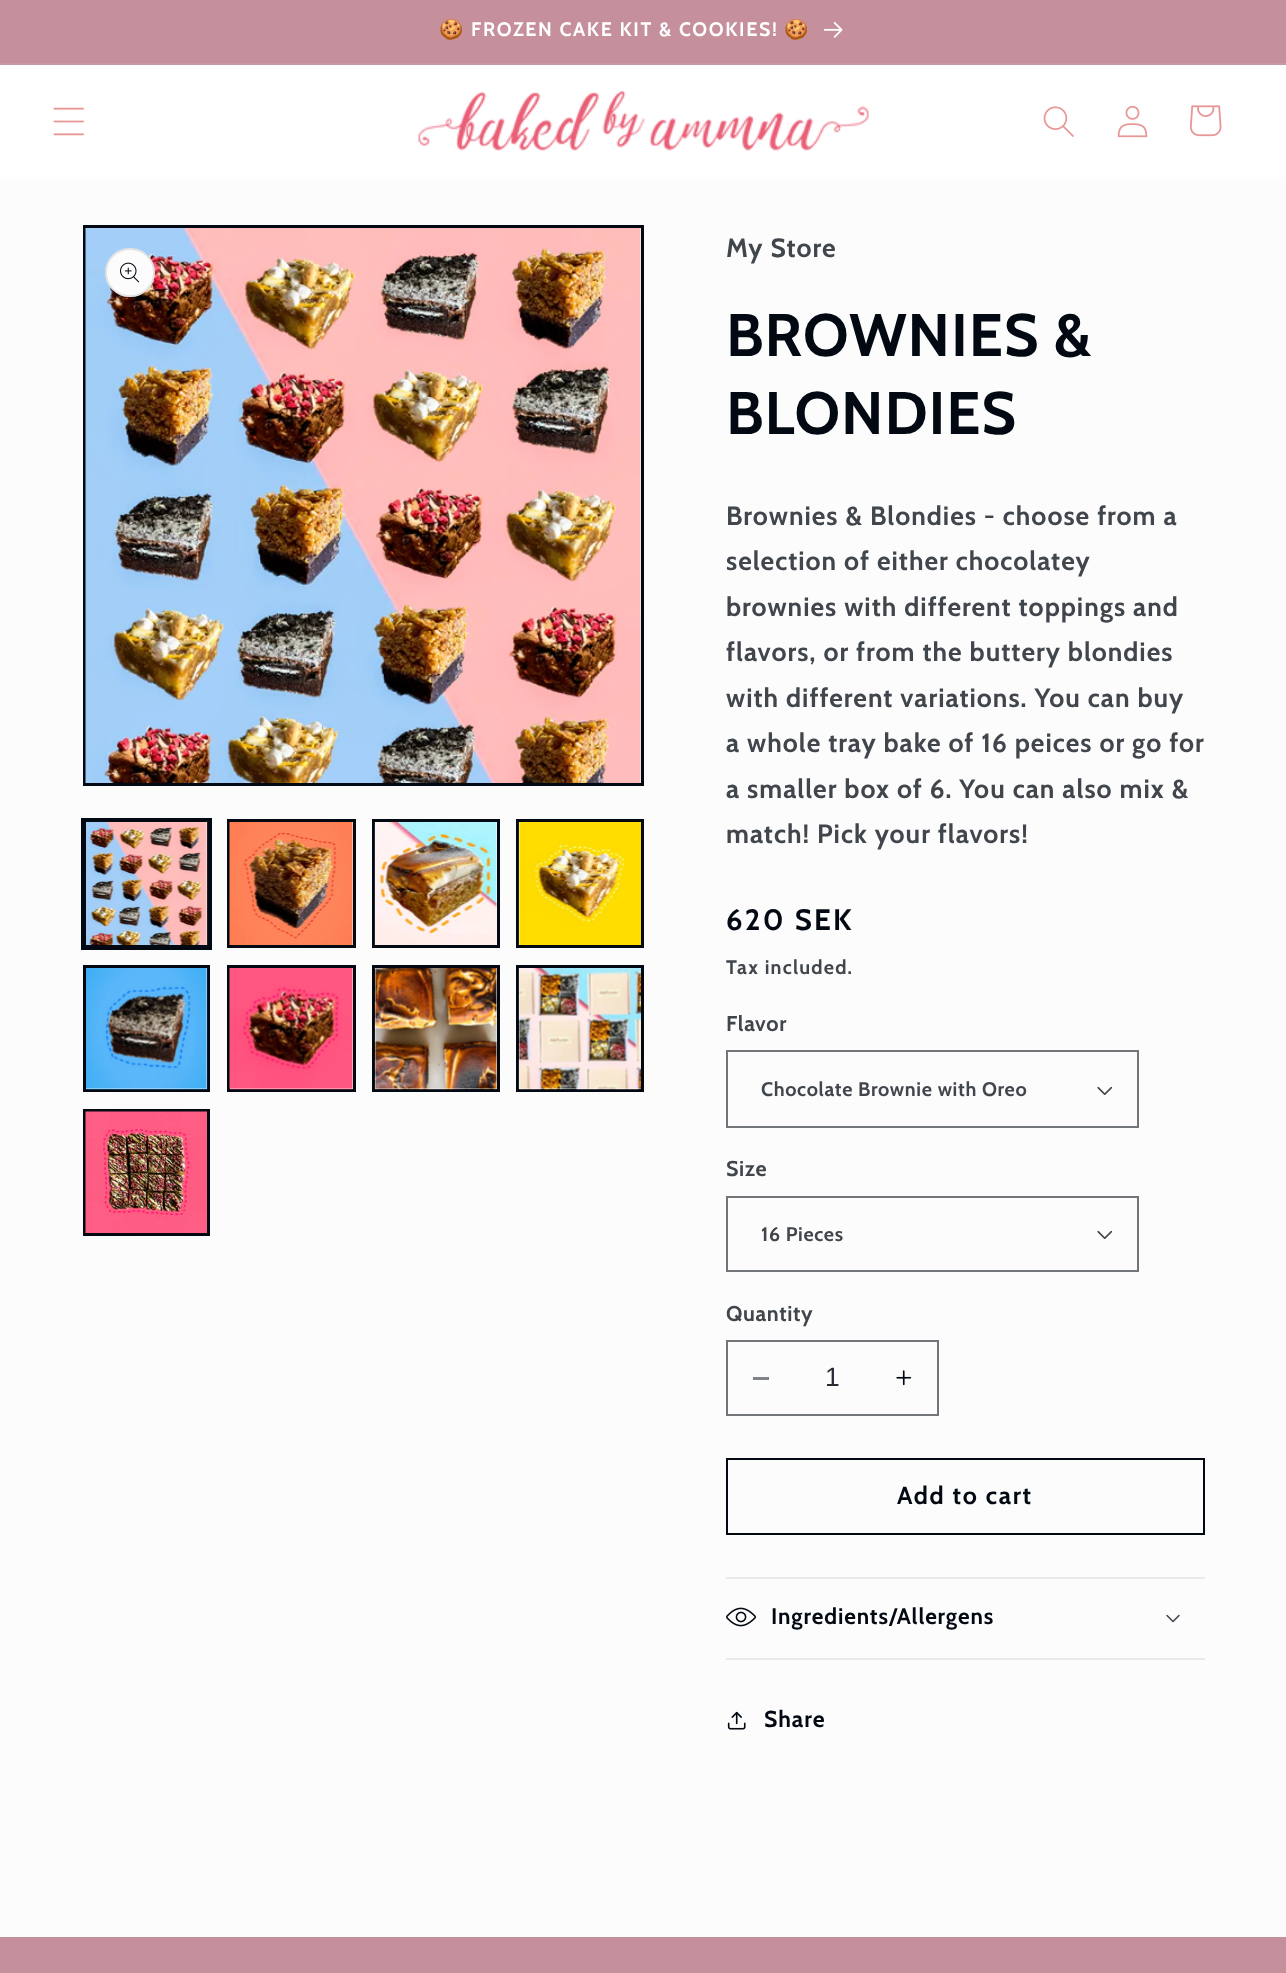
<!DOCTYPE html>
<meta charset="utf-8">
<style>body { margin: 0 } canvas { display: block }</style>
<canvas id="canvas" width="1286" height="1973"></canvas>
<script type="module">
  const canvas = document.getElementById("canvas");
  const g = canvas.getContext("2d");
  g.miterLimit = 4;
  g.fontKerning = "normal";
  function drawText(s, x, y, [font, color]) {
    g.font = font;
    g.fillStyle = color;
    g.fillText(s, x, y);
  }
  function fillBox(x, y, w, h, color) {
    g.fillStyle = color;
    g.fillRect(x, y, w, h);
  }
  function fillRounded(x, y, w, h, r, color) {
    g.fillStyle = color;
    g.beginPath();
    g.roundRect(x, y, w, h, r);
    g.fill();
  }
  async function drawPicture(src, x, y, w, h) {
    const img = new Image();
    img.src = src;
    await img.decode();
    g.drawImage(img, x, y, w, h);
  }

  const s1 = ["bold 19.5px Noto Color Emoji", "#FFFFFF"];
  const s2 = ["bold 19.5px Cabin", "#FFFFFF"];
  const s3 = ["bold 26.4px Cabin", "#41464D"];
  const s4 = ["bold 60px Cabin", "#020912"];
  const s5 = ["bold 29.5px Cabin", "#020912"];
  const s6 = ["bold 19.75px Cabin", "#41464D"];
  const s7 = ["bold 21.5px Cabin", "#41464D"];
  const s8 = ["26.4px Liberation Sans", "#282D35"];
  const s9 = ["bold 24.75px Cabin", "#020912"];
  const s10 = ["bold 22.5px Cabin", "#020912"];
  const s11 = ["bold 23px Cabin", "#020912"];

  fillBox(0, 0, 1286, 1973, "#FCFCFC");
  fillBox(0, 0, 1286, 63, "#C58F9C");
  fillBox(0, 63, 1286, 2, "#CA98A4");
  g.letterSpacing = "1.65px";
  drawText("🍪", 439, 36, s1);
  drawText("FROZEN CAKE KIT & COOKIES!", 471, 36, s2);
  drawText("🍪", 784, 36, s1);
  await drawPicture("pic1.png", 824, 21, 19, 17);
  fillBox(0, 65, 1286, 112, "#FFFFFF");
  await drawPicture("pic2.png", 53, 107, 31, 29);
  await drawPicture("pic3.png", 418, 91, 451, 60);
  await drawPicture("pic4.png", 1043, 106, 31, 31);
  await drawPicture("pic5.png", 1117, 105, 31, 33);
  await drawPicture("pic6.png", 1189, 105, 33, 32);
  g.strokeStyle = "#020912";
  g.lineWidth = 3;
  g.strokeRect(84.5, 226.5, 558, 558);
  await drawPicture("pic7.png", 85, 228, 556, 555);
  fillRounded(105, 248, 50, 49, 24.5, "#FCFCFC");
  g.beginPath();
  g.roundRect(106, 249, 48, 47, 23.5);
  g.strokeStyle = "rgba(2, 9, 18, 0.1)";
  g.lineWidth = 2;
  g.stroke();
  await drawPicture("pic8.png", 120, 262, 20, 21);
  g.strokeStyle = "#020912";
  g.strokeRect(82, 819, 129, 130);
  g.lineWidth = 3;
  g.strokeRect(84.5, 820.5, 124, 126);
  await drawPicture("pic9.png", 86, 822, 122, 123);
  g.strokeRect(228.5, 820.5, 126, 126);
  await drawPicture("pic10.png", 229, 822, 124, 123);
  g.strokeRect(373.5, 820.5, 125, 126);
  await drawPicture("pic11.png", 374, 822, 123, 123);
  g.strokeRect(517.5, 820.5, 125, 126);
  await drawPicture("pic12.png", 518, 822, 123, 123);
  g.strokeRect(84.5, 966.5, 124, 124);
  await drawPicture("pic13.png", 86, 968, 122, 122);
  g.strokeRect(228.5, 966.5, 126, 124);
  await drawPicture("pic14.png", 229, 968, 124, 122);
  g.strokeRect(373.5, 966.5, 125, 124);
  await drawPicture("pic15.png", 374, 968, 123, 122);
  g.strokeRect(517.5, 966.5, 125, 124);
  await drawPicture("pic16.png", 518, 968, 123, 122);
  g.strokeRect(84.5, 1110.5, 124, 124);
  await drawPicture("pic17.png", 85, 1111, 122, 122);
  g.letterSpacing = "1px";
  drawText("My Store", 726, 257, s3);
  g.letterSpacing = "0.9px";
  drawText("BROWNIES &", 726, 356, s4);
  drawText("BLONDIES", 726, 434, s4);
  g.letterSpacing = "1px";
  drawText("Brownies & Blondies - choose from a", 726, 525, s3);
  drawText("selection of either chocolatey", 726, 570, s3);
  drawText("brownies with different toppings and", 726, 616, s3);
  drawText("flavors, or from the buttery blondies", 726, 661, s3);
  drawText("with different variations. You can buy", 726, 707, s3);
  drawText("a whole tray bake of 16 peices or go for", 726, 752, s3);
  drawText("a smaller box of 6. You can also mix &", 726, 798, s3);
  drawText("match! Pick your flavors!", 726, 843, s3);
  g.letterSpacing = "2.25px";
  drawText("620 SEK", 726, 930, s5);
  g.letterSpacing = "1.2px";
  drawText("Tax included.", 726, 974, s6);
  g.letterSpacing = "0.65px";
  drawText("Flavor", 726, 1031, s7);
  await drawPicture("pic18.png", 1097, 1086, 16, 9);
  g.strokeStyle = "#72767B";
  g.lineWidth = 2;
  g.strokeRect(727, 1051, 411, 76);
  drawText("Chocolate Brownie with Oreo", 761, 1096, s6);
  drawText("Size", 726, 1176, s7);
  await drawPicture("pic18.png", 1097, 1230, 16, 9);
  g.strokeRect(727, 1197, 411, 74);
  drawText("16 Pieces", 761, 1241, s6);
  drawText("Quantity", 726, 1321, s7);
  fillBox(753, 1377, 16, 3, "#7F8387");
  await drawPicture("pic19.png", 896, 1370, 16, 16);
  g.strokeRect(727, 1341, 211, 74);
  g.letterSpacing = "0px";
  drawText("1", 825, 1386, s8);
  g.strokeStyle = "#020912";
  g.strokeRect(727, 1459, 477, 75);
  g.letterSpacing = "1.65px";
  drawText("Add to cart", 897, 1504, s9);
  fillBox(726, 1577, 479, 2, "#E8E9E9");
  fillBox(726, 1658, 479, 2, "#E8E9E9");
  await drawPicture("pic20.png", 726, 1607, 30, 20);
  g.letterSpacing = "0.9px";
  drawText("Ingredients/Allergens", 771, 1624, s10);
  await drawPicture("pic21.png", 1166, 1614, 14, 9);
  await drawPicture("pic22.png", 727, 1711, 19, 19);
  g.letterSpacing = "1px";
  drawText("Share", 764, 1727, s11);
  fillBox(0, 1937, 1286, 36, "#C58F9C");
</script>
